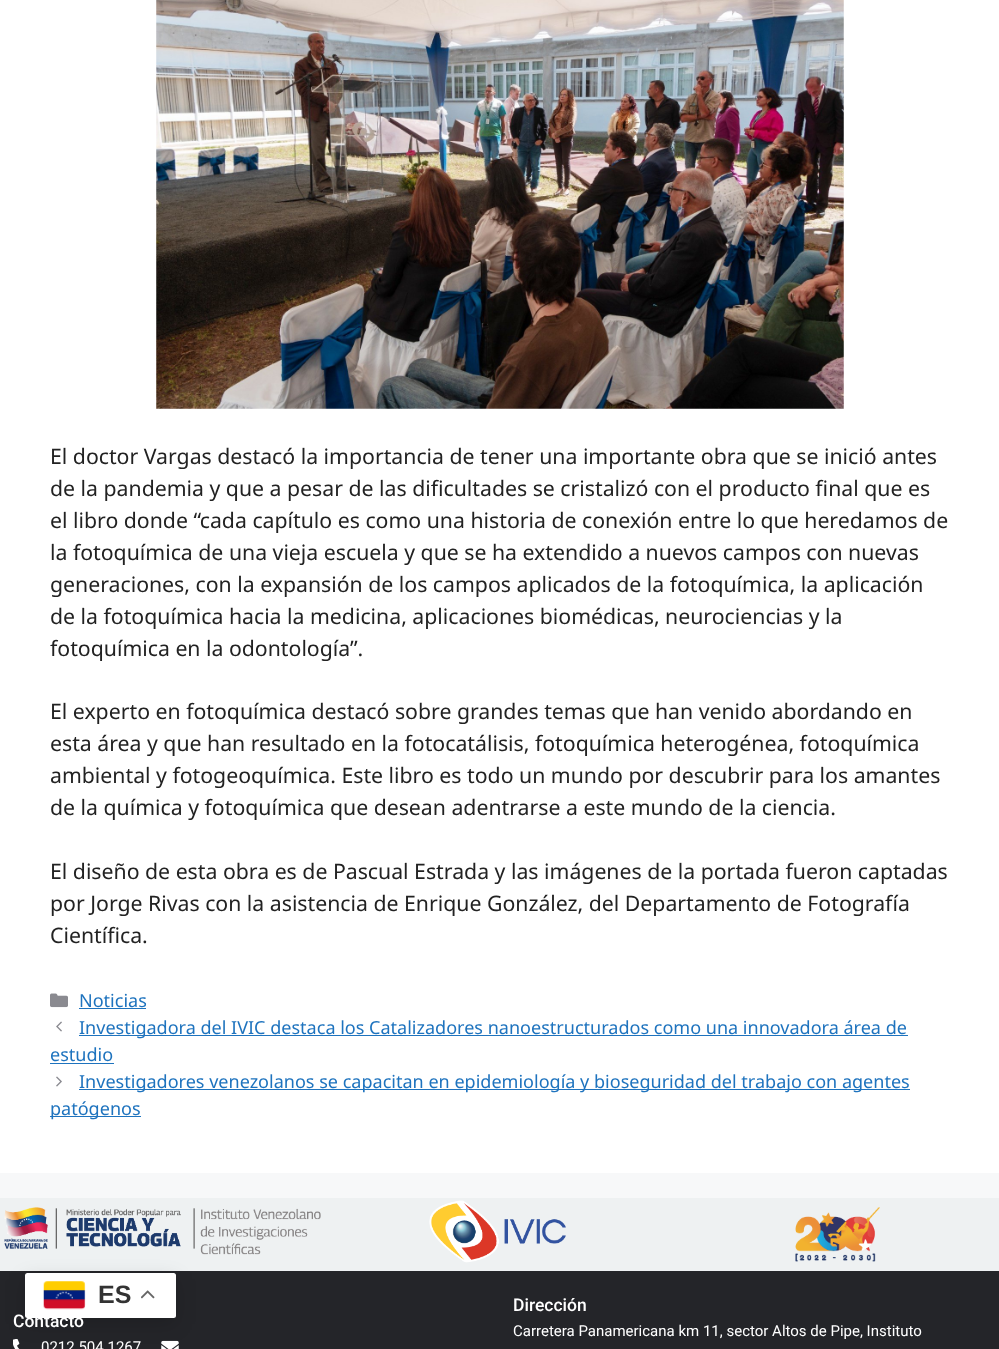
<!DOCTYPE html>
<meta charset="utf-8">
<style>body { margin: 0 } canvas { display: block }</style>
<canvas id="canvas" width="999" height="1349"></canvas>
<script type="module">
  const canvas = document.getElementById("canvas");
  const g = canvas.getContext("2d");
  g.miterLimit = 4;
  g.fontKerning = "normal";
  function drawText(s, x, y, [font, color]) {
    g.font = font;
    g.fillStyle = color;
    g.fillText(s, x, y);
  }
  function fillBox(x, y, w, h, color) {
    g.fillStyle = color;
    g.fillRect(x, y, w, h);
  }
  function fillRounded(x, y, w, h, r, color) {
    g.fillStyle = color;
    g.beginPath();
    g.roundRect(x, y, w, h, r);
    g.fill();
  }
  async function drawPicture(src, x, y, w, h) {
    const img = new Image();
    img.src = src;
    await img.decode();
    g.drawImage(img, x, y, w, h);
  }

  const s1 = ["21.25px Noto Sans", "#222222"];
  const s2 = ["18.05px Noto Sans", "#1E73BE"];
  const s3 = ["bold 25px Liberation Sans", "#333333"];
  const s4 = ["500 17.5px Roboto", "#FFFFFF"];
  const s5 = ["15px Roboto", "#FFFFFF"];

  fillBox(0, 0, 999, 1349, "#F7F8F9");
  fillBox(0, 0, 999, 1173, "#FFFFFF");
  await drawPicture("pic1.png", 156, 0, 688, 409);
  drawText("El doctor Vargas destacó la importancia de tener una importante obra que se inició antes", 50, 464, s1);
  drawText("de la pandemia y que a pesar de las dificultades se cristalizó con el producto final que es", 50, 496, s1);
  drawText("el libro donde “cada capítulo es como una historia de conexión entre lo que heredamos de", 50, 528, s1);
  drawText("la fotoquímica de una vieja escuela y que se ha extendido a nuevos campos con nuevas", 50, 560, s1);
  drawText("generaciones, con la expansión de los campos aplicados de la fotoquímica, la aplicación", 50, 592, s1);
  drawText("de la fotoquímica hacia la medicina, aplicaciones biomédicas, neurociencias y la", 50, 624, s1);
  drawText("fotoquímica en la odontología”.", 50, 656, s1);
  drawText("El experto en fotoquímica destacó sobre grandes temas que han venido abordando en", 50, 719, s1);
  drawText("esta área y que han resultado en la fotocatálisis, fotoquímica heterogénea, fotoquímica", 50, 751, s1);
  drawText("ambiental y fotogeoquímica. Este libro es todo un mundo por descubrir para los amantes", 50, 783, s1);
  drawText("de la química y fotoquímica que desean adentrarse a este mundo de la ciencia.", 50, 815, s1);
  drawText("El diseño de esta obra es de Pascual Estrada y las imágenes de la portada fueron captadas", 50, 879, s1);
  drawText("por Jorge Rivas con la asistencia de Enrique González, del Departamento de Fotografía", 50, 911, s1);
  drawText("Científica.", 50, 943, s1);
  await drawPicture("pic2.png", 50, 993, 18, 15);
  drawText("Noticias", 79, 1007, s2);
  fillBox(79, 1008, 67, 1, "#1E73BE");
  await drawPicture("pic3.png", 56, 1021, 6, 11);
  fillBox(79, 1035, 829, 1, "#1E73BE");
  drawText("Investigadora del IVIC destaca los Catalizadores nanoestructurados como una innovadora área de", 79, 1034, s2);
  drawText("estudio", 50, 1061, s2);
  fillBox(50, 1063, 64, 1, "#1E73BE");
  await drawPicture("pic4.png", 56, 1076, 6, 11);
  fillBox(79, 1089, 831, 1, "#1E73BE");
  drawText("Investigadores venezolanos se capacitan en epidemiología y bioseguridad del trabajo con agentes", 79, 1088, s2);
  fillBox(50, 1116, 91, 1, "#1E73BE");
  drawText("patógenos", 50, 1115, s2);
  fillBox(0, 1198, 999, 73, "#EEF1F2");
  await drawPicture("pic7.png", 4, 1207, 317, 48);
  fillBox(0, 1271, 999, 78, "#242529");
  await drawPicture("pic10.png", 13, 1339, 7, 10);
  await drawPicture("pic11.png", 161, 1340, 18, 9);
  g.fillStyle = "rgba(0, 0, 0, 0.15)";
  g.filter = "blur(9.5px)";
  g.beginPath();
  g.roundRect(25, 1279, 151, 45, 2.5);
  g.fill();
  g.filter = "none";
  fillRounded(25, 1273, 151, 45, 2.5, "#FFFFFF");
  await drawPicture("pic5.png", 43, 1281, 43, 29);
  drawText("ES", 98, 1303, s3);
  await drawPicture("pic6.png", 141, 1290, 14, 9);
  await drawPicture("pic8.png", 429, 1200, 137, 63);
  await drawPicture("pic9.png", 795, 1207, 85, 55);
  drawText("Contacto", 13, 1327, s4);
  drawText("0212 504 1267", 41, 1352, s5);
  drawText("Dirección", 513, 1311, s4);
  drawText("Carretera Panamericana km 11, sector Altos de Pipe, Instituto", 513, 1336, s5);
</script>
